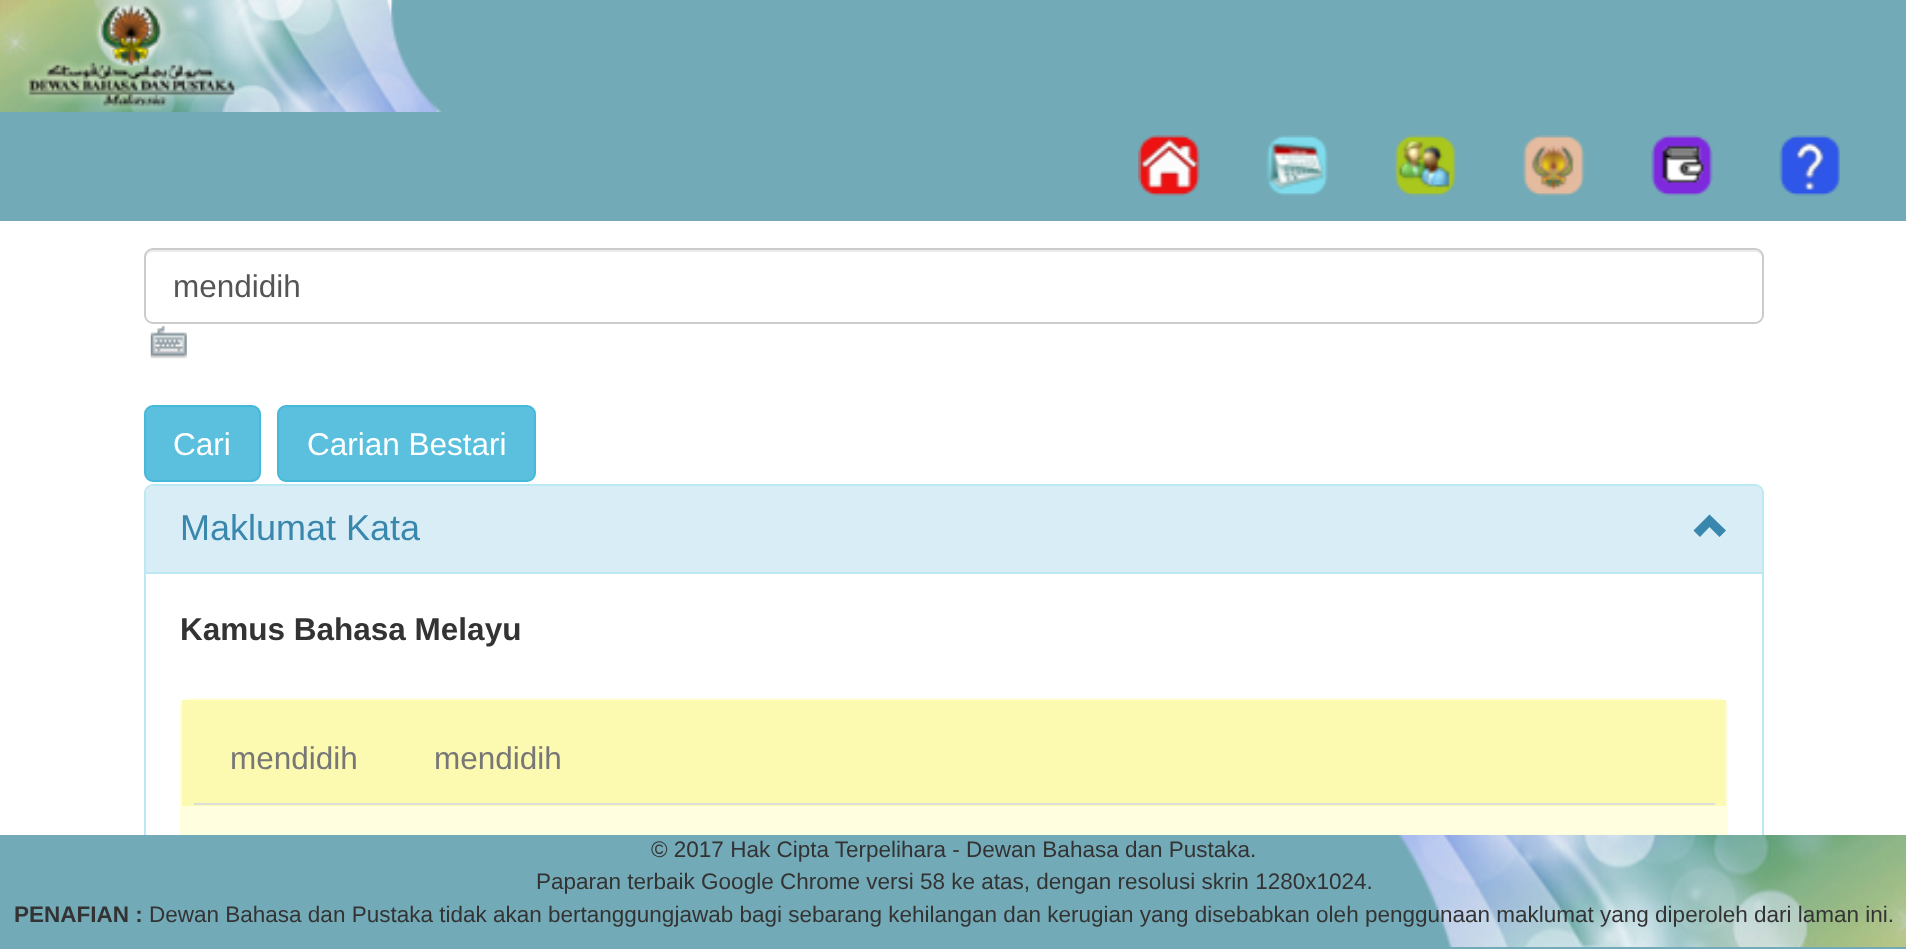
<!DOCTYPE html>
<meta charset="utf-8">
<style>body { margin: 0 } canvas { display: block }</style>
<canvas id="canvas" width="1906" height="949"></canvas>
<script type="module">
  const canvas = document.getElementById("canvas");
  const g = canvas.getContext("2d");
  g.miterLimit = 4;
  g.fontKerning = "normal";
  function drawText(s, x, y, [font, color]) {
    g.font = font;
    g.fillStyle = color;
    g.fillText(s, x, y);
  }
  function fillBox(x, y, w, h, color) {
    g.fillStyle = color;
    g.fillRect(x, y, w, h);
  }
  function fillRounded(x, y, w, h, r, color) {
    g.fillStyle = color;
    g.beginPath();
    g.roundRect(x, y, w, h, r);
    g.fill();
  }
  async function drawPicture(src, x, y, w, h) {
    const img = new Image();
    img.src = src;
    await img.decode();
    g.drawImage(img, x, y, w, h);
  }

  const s1 = ["31.5px Liberation Sans", "#555555"];
  const s2 = ["31.5px Liberation Sans", "#FFFFFF"];
  const s3 = ["36px Liberation Sans", "#3A87AD"];
  const s4 = ["bold 31.5px Liberation Sans", "#333333"];
  const s5 = ["31.5px Liberation Sans", "#777777"];
  const s6 = ["22.5px Liberation Sans", "#333333"];
  const s7 = ["bold 22.5px Liberation Sans", "#333333"];

  fillBox(0, 0, 1906, 949, "#FFFFFF");
  fillBox(0, 0, 1906, 221, "#73AAB7");
  await drawPicture("pic1.png", 0, 0, 442, 112);
  await drawPicture("pic2.png", 1138, 135, 62, 61);
  await drawPicture("pic3.png", 1266, 135, 62, 61);
  await drawPicture("pic4.png", 1394, 135, 63, 61);
  await drawPicture("pic5.png", 1523, 135, 62, 61);
  await drawPicture("pic6.png", 1651, 135, 62, 61);
  await drawPicture("pic7.png", 1779, 135, 61, 61);
  g.fillStyle = "#ECECEC";
  g.beginPath();
  g.moveTo(153, 252);
  g.lineTo(1755, 252);
  g.bezierCurveTo(1759, 252, 1762, 255, 1762, 259);
  g.bezierCurveTo(1762, 255, 1760, 250, 1755, 250);
  g.lineTo(153, 250);
  g.bezierCurveTo(148, 250, 146, 255, 146, 259);
  g.bezierCurveTo(146, 255, 149, 252, 153, 252);
  g.closePath();
  g.fill();
  g.beginPath();
  g.roundRect(145, 249, 1618, 74, 8);
  g.strokeStyle = "#CCCCCC";
  g.lineWidth = 2;
  g.stroke();
  drawText("mendidih", 173, 297, s1);
  await drawPicture("pic8.png", 150, 325, 37, 34);
  g.fillStyle = "#5BC0DE";
  g.beginPath();
  g.roundRect(145, 406, 115, 75, 8);
  g.fill();
  g.strokeStyle = "#46B8DA";
  g.stroke();
  drawText("Cari", 173, 455, s2);
  g.fillStyle = "#5BC0DE";
  g.beginPath();
  g.roundRect(278, 406, 257, 75, 8);
  g.fill();
  g.stroke();
  drawText("Carian Bestari", 307, 455, s2);
  g.beginPath();
  g.roundRect(145, 485, 1618, 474, 8);
  g.strokeStyle = "#BCE8F1";
  g.stroke();
  g.fillStyle = "#D9EDF7";
  g.beginPath();
  g.roundRect(146, 486, 1616, 88, [7, 7, 0, 0]);
  g.fill();
  fillBox(146, 572, 1616, 2, "#BCE8F1");
  drawText("Maklumat Kata", 180, 540, s3);
  g.beginPath();
  g.moveTo(1719.5, 537);
  g.lineTo(1726, 530.5);
  g.lineTo(1709.5, 514.5);
  g.lineTo(1693.5, 530.5);
  g.lineTo(1700, 537);
  g.lineTo(1709.5, 527);
  g.closePath();
  g.fill();
  drawText("Kamus Bahasa Melayu", 180, 640, s4);
  fillRounded(180, 698, 1548, 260, 9, "#FFFFE0");
  fillBox(182, 700, 1544, 106, "#FCF9B0");
  fillBox(194, 803, 1521, 2, "#DDDDDD");
  drawText("mendidih", 230, 769, s5);
  drawText("mendidih", 434, 769, s5);
  fillBox(0, 835, 1906, 114, "#73AAB7");
  await drawPicture("pic9.png", 1399, 835, 507, 112);
  drawText("© 2017 Hak Cipta Terpelihara - Dewan Bahasa dan Pustaka.", 651, 857, s6);
  drawText("Paparan terbaik Google Chrome versi 58 ke atas, dengan resolusi skrin 1280x1024.", 536, 889, s6);
  drawText("PENAFIAN :", 14, 922, s7);
  drawText("Dewan Bahasa dan Pustaka tidak akan bertanggungjawab bagi sebarang kehilangan dan kerugian yang disebabkan oleh penggunaan maklumat yang diperoleh dari laman ini.", 149, 922, s6);
</script>
